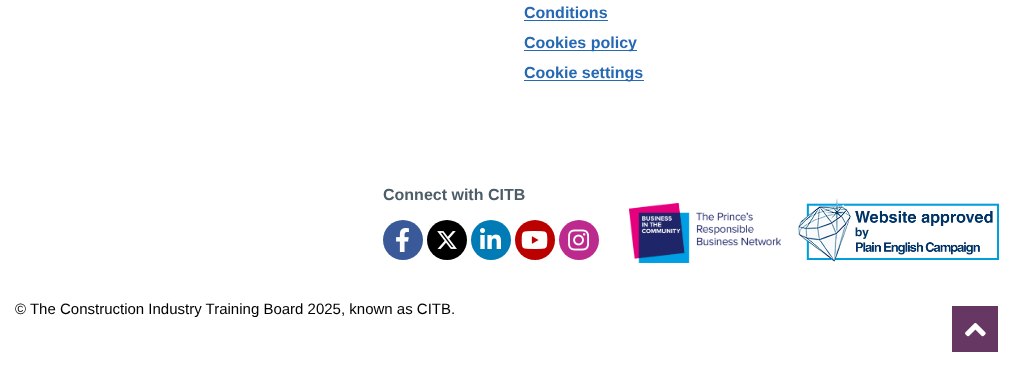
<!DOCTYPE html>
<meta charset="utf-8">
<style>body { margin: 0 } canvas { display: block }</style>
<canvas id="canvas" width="1019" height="373"></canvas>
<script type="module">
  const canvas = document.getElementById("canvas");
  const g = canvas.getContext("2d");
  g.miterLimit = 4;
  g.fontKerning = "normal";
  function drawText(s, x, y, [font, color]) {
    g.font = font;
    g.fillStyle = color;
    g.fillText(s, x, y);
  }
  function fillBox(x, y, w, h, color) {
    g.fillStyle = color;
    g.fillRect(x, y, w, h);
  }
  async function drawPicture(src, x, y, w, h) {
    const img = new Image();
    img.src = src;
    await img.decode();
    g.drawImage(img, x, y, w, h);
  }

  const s1 = ["bold 16px Liberation Sans", "#2568B3"];
  const s2 = ["bold 16px Liberation Sans", "#4D5D68"];
  const s3 = ["15px Liberation Sans", "#000000"];

  fillBox(0, 0, 1019, 373, "#FFFFFF");
  drawText("Conditions", 524, 18, s1);
  fillBox(524, 20, 84, 1, "#2568B3");
  fillBox(524, 50, 113, 1, "#2568B3");
  drawText("Cookies policy", 524, 48, s1);
  fillBox(524, 80, 120, 1, "#2568B3");
  drawText("Cookie settings", 524, 78, s1);
  drawText("Connect with CITB", 383, 200, s2);
  g.fillStyle = "#3A5999";
  g.beginPath();
  g.arc(403, 240, 20, 0, Math.PI * 2);
  g.fill();
  await drawPicture("pic1.png", 396, 228, 13, 24);
  g.fillStyle = "#000000";
  g.beginPath();
  g.arc(447, 240, 20, 0, Math.PI * 2);
  g.fill();
  await drawPicture("pic2.png", 437, 231, 20, 18);
  g.fillStyle = "#007BB5";
  g.beginPath();
  g.arc(491, 240, 20, 0, Math.PI * 2);
  g.fill();
  await drawPicture("pic3.png", 480, 228, 21, 21);
  g.fillStyle = "#BB0000";
  g.beginPath();
  g.arc(535, 240, 20, 0, Math.PI * 2);
  g.fill();
  await drawPicture("pic4.png", 521, 231, 27, 18);
  g.fillStyle = "#BC2A8D";
  g.beginPath();
  g.arc(579, 240, 20, 0, Math.PI * 2);
  g.fill();
  await drawPicture("pic5.png", 568, 229, 22, 22);
  await drawPicture("pic6.png", 629, 203, 152, 60);
  await drawPicture("pic7.png", 798, 198, 201, 64);
  drawText("© The Construction Industry Training Board 2025, known as CITB.", 15, 314, s3);
  fillBox(952, 306, 46, 46, "#663763");
  await drawPicture("pic8.png", 965, 323, 21, 14);
</script>
